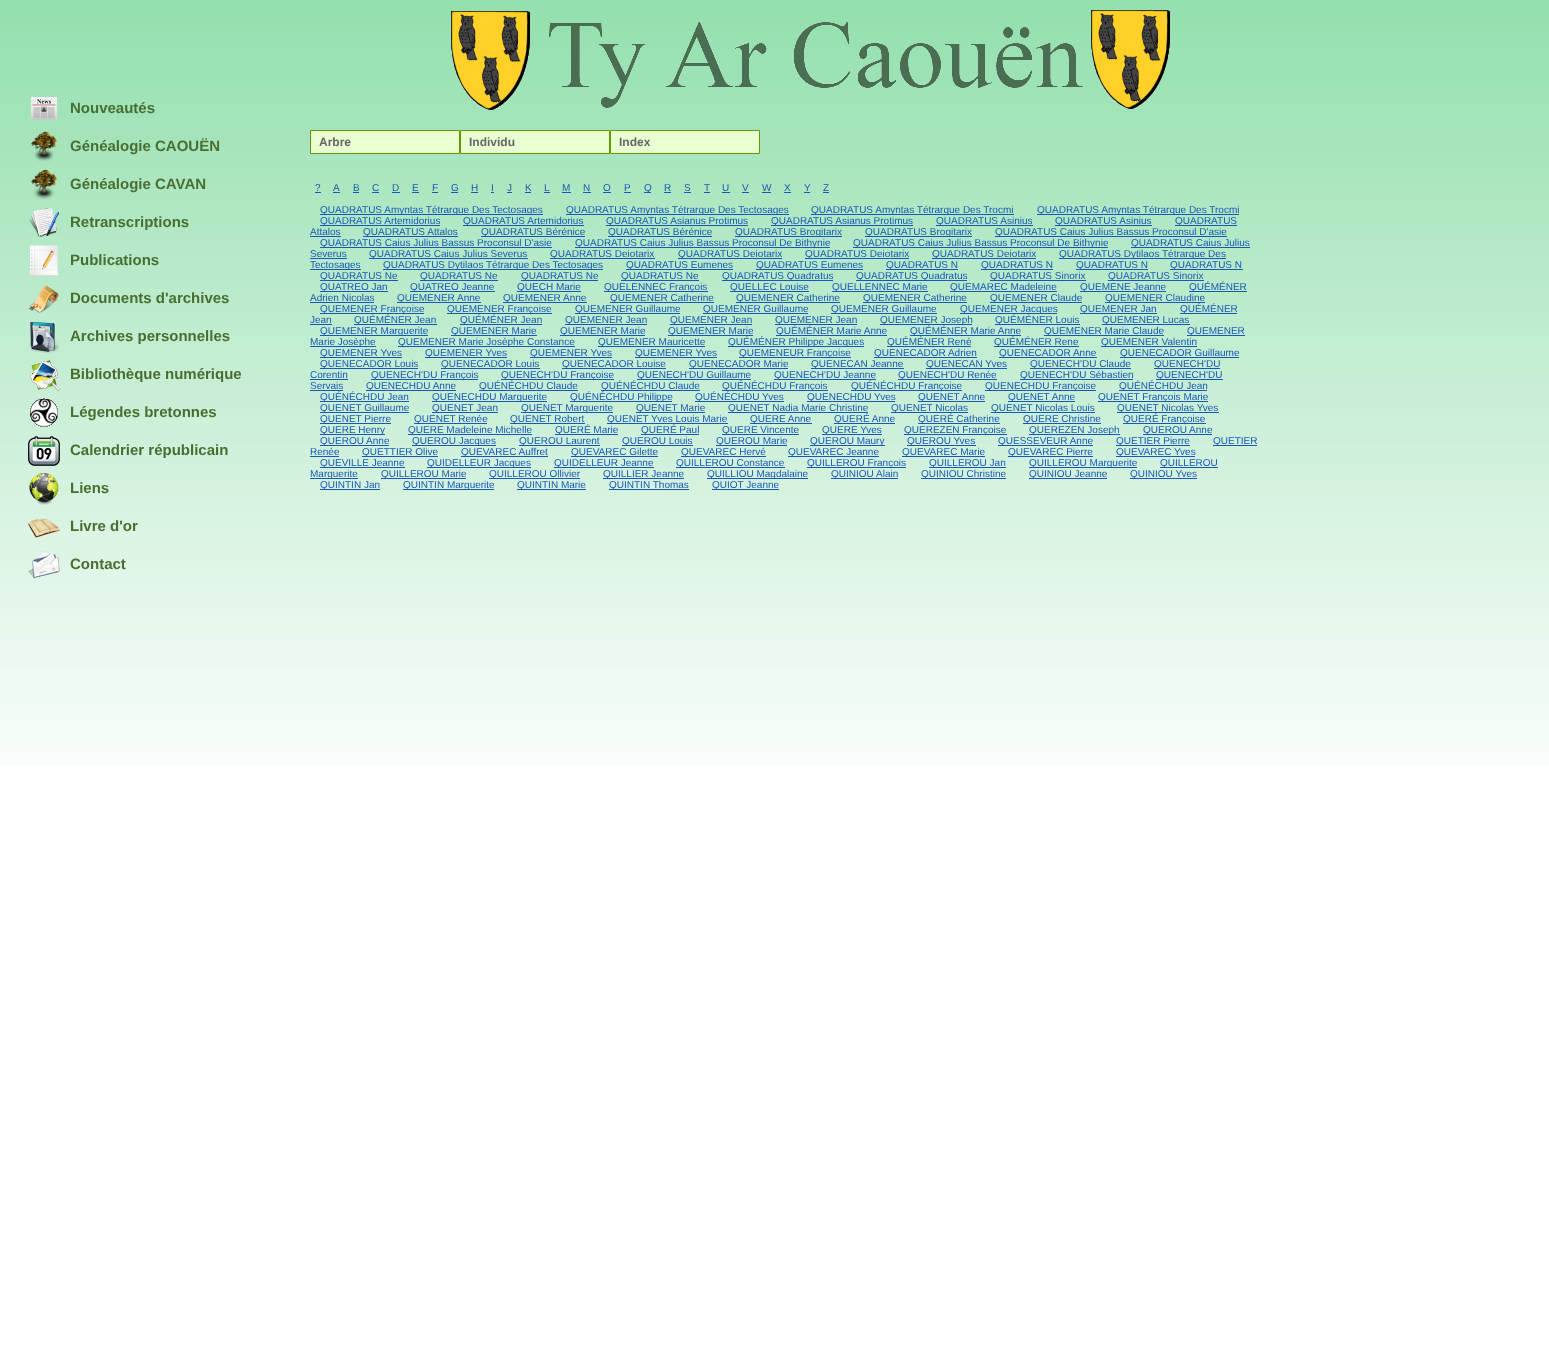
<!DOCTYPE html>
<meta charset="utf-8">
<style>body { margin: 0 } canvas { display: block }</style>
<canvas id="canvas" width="1549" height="1347"></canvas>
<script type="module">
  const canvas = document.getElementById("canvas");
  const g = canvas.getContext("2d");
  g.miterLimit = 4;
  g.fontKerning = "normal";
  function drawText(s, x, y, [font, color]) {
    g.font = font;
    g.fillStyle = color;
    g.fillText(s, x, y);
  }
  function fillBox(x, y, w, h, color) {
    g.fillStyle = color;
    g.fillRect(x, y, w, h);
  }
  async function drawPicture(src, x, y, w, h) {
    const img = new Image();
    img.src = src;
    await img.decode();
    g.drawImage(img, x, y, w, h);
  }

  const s1 = ["bold 15px Liberation Sans", "#496E31"];
  const s2 = ["bold 12px Liberation Sans", "#666666"];
  const s3 = ["10px Liberation Sans", "#1958B7"];

  fillBox(0, 0, 1549, 1347, "#FFFFFF");
  await drawPicture("pic1.png", 0, 0, 1549, 766);
  await drawPicture("pic2.png", 31, 97, 26, 23);
  drawText("Nouveautés", 70, 113, s1);
  await drawPicture("pic3.png", 31, 131, 26, 31);
  drawText("Généalogie CAOUËN", 70, 151, s1);
  await drawPicture("pic4.png", 31, 169, 26, 31);
  drawText("Généalogie CAVAN", 70, 189, s1);
  await drawPicture("pic5.png", 29, 208, 30, 29);
  drawText("Retranscriptions", 70, 227, s1);
  await drawPicture("pic6.png", 30, 245, 28, 31);
  drawText("Publications", 70, 265, s1);
  await drawPicture("pic7.png", 28, 286, 31, 27);
  drawText("Documents d'archives", 70, 303, s1);
  await drawPicture("pic8.png", 29, 322, 30, 31);
  drawText("Archives personnelles", 70, 341, s1);
  await drawPicture("pic9.png", 30, 360, 30, 31);
  drawText("Bibliothèque numérique", 70, 379, s1);
  await drawPicture("pic10.png", 30, 398, 28, 29);
  drawText("Légendes bretonnes", 70, 417, s1);
  await drawPicture("pic11.png", 28, 436, 32, 30);
  drawText("Calendrier républicain", 70, 455, s1);
  await drawPicture("pic12.png", 29, 473, 30, 32);
  drawText("Liens", 70, 493, s1);
  await drawPicture("pic13.png", 28, 518, 32, 20);
  drawText("Livre d'or", 70, 531, s1);
  await drawPicture("pic14.png", 28, 551, 32, 28);
  drawText("Contact", 70, 569, s1);
  await drawPicture("pic15.png", 451, 10, 719, 100);
  g.fillStyle = "#E9FFD2";
  g.beginPath();
  g.rect(310.5, 130.5, 149, 23);
  g.fill();
  g.strokeStyle = "#669900";
  g.stroke();
  drawText("Arbre", 319, 146, s2);
  g.fillStyle = "#E9FFD2";
  g.beginPath();
  g.rect(460.5, 130.5, 149, 23);
  g.fill();
  g.stroke();
  drawText("Individu", 469, 146, s2);
  g.fillStyle = "#E9FFD2";
  g.beginPath();
  g.rect(610.5, 130.5, 149, 23);
  g.fill();
  g.stroke();
  drawText("Index", 619, 146, s2);
  drawText("?", 315, 191, s3);
  fillBox(315, 192, 6, 1, "#1958B7");
  drawText("A", 333, 191, s3);
  fillBox(333, 192, 7, 1, "#1958B7");
  drawText("B", 353, 191, s3);
  fillBox(353, 192, 6, 1, "#1958B7");
  drawText("C", 372, 191, s3);
  fillBox(372, 192, 7, 1, "#1958B7");
  drawText("D", 392, 191, s3);
  fillBox(392, 192, 8, 1, "#1958B7");
  drawText("E", 412, 191, s3);
  fillBox(412, 192, 7, 1, "#1958B7");
  drawText("F", 432, 191, s3);
  fillBox(432, 192, 6, 1, "#1958B7");
  drawText("G", 451, 191, s3);
  fillBox(451, 192, 7, 1, "#1958B7");
  drawText("H", 471, 191, s3);
  fillBox(471, 192, 7, 1, "#1958B7");
  drawText("I", 491, 191, s3);
  fillBox(491, 192, 3, 1, "#1958B7");
  drawText("J", 507, 191, s3);
  fillBox(507, 192, 5, 1, "#1958B7");
  drawText("K", 525, 191, s3);
  fillBox(525, 192, 6, 1, "#1958B7");
  drawText("L", 544, 191, s3);
  fillBox(544, 192, 6, 1, "#1958B7");
  drawText("M", 562, 191, s3);
  fillBox(562, 192, 9, 1, "#1958B7");
  drawText("N", 583, 191, s3);
  fillBox(583, 192, 8, 1, "#1958B7");
  drawText("O", 603, 191, s3);
  fillBox(603, 192, 8, 1, "#1958B7");
  drawText("P", 624, 191, s3);
  fillBox(624, 192, 7, 1, "#1958B7");
  fillBox(644, 192, 7, 1, "#1958B7");
  drawText("Q", 644, 191, s3);
  drawText("R", 664, 191, s3);
  fillBox(664, 192, 7, 1, "#1958B7");
  drawText("S", 684, 191, s3);
  fillBox(684, 192, 7, 1, "#1958B7");
  drawText("T", 704, 191, s3);
  fillBox(704, 192, 6, 1, "#1958B7");
  drawText("U", 722, 191, s3);
  fillBox(722, 192, 8, 1, "#1958B7");
  drawText("V", 742, 191, s3);
  fillBox(742, 192, 7, 1, "#1958B7");
  drawText("W", 762, 191, s3);
  fillBox(762, 192, 9, 1, "#1958B7");
  drawText("X", 784, 191, s3);
  fillBox(784, 192, 7, 1, "#1958B7");
  drawText("Y", 804, 191, s3);
  fillBox(804, 192, 6, 1, "#1958B7");
  drawText("Z", 823, 191, s3);
  fillBox(823, 192, 6, 1, "#1958B7");
  fillBox(320, 214, 223, 1, "#1958B7");
  drawText("QUADRATUS Amyntas Tétrarque Des Tectosages", 320, 213, s3);
  fillBox(566, 214, 223, 1, "#1958B7");
  drawText("QUADRATUS Amyntas Tétrarque Des Tectosages", 566, 213, s3);
  fillBox(811, 214, 203, 1, "#1958B7");
  drawText("QUADRATUS Amyntas Tétrarque Des Trocmi", 811, 213, s3);
  fillBox(1037, 214, 202, 1, "#1958B7");
  drawText("QUADRATUS Amyntas Tétrarque Des Trocmi", 1037, 213, s3);
  fillBox(320, 225, 120, 1, "#1958B7");
  drawText("QUADRATUS Artemidorius", 320, 224, s3);
  fillBox(463, 225, 121, 1, "#1958B7");
  drawText("QUADRATUS Artemidorius", 463, 224, s3);
  fillBox(606, 225, 142, 1, "#1958B7");
  drawText("QUADRATUS Asianus Protimus", 606, 224, s3);
  fillBox(771, 225, 142, 1, "#1958B7");
  drawText("QUADRATUS Asianus Protimus", 771, 224, s3);
  fillBox(936, 225, 97, 1, "#1958B7");
  drawText("QUADRATUS Asinius", 936, 224, s3);
  fillBox(1055, 225, 97, 1, "#1958B7");
  drawText("QUADRATUS Asinius", 1055, 224, s3);
  fillBox(1175, 225, 62, 1, "#1958B7");
  drawText("QUADRATUS", 1175, 224, s3);
  drawText("Attalos", 310, 235, s3);
  fillBox(310, 236, 31, 1, "#1958B7");
  fillBox(363, 236, 95, 1, "#1958B7");
  drawText("QUADRATUS Attalos", 363, 235, s3);
  fillBox(481, 236, 104, 1, "#1958B7");
  drawText("QUADRATUS Bérénice", 481, 235, s3);
  fillBox(608, 236, 104, 1, "#1958B7");
  drawText("QUADRATUS Bérénice", 608, 235, s3);
  fillBox(735, 236, 107, 1, "#1958B7");
  drawText("QUADRATUS Brogitarix", 735, 235, s3);
  fillBox(865, 236, 107, 1, "#1958B7");
  drawText("QUADRATUS Brogitarix", 865, 235, s3);
  fillBox(995, 236, 232, 1, "#1958B7");
  drawText("QUADRATUS Caius Julius Bassus Proconsul D'asie", 995, 235, s3);
  fillBox(320, 247, 232, 1, "#1958B7");
  drawText("QUADRATUS Caius Julius Bassus Proconsul D'asie", 320, 246, s3);
  fillBox(575, 247, 255, 1, "#1958B7");
  drawText("QUADRATUS Caius Julius Bassus Proconsul De Bithynie", 575, 246, s3);
  fillBox(853, 247, 255, 1, "#1958B7");
  drawText("QUADRATUS Caius Julius Bassus Proconsul De Bithynie", 853, 246, s3);
  fillBox(1131, 247, 119, 1, "#1958B7");
  drawText("QUADRATUS Caius Julius", 1131, 246, s3);
  drawText("Severus", 310, 257, s3);
  fillBox(310, 258, 37, 1, "#1958B7");
  fillBox(369, 258, 159, 1, "#1958B7");
  drawText("QUADRATUS Caius Julius Severus", 369, 257, s3);
  fillBox(550, 258, 105, 1, "#1958B7");
  drawText("QUADRATUS Deiotarix", 550, 257, s3);
  fillBox(678, 258, 104, 1, "#1958B7");
  drawText("QUADRATUS Deiotarix", 678, 257, s3);
  fillBox(805, 258, 104, 1, "#1958B7");
  drawText("QUADRATUS Deiotarix", 805, 257, s3);
  fillBox(932, 258, 104, 1, "#1958B7");
  drawText("QUADRATUS Deiotarix", 932, 257, s3);
  fillBox(1059, 258, 167, 1, "#1958B7");
  drawText("QUADRATUS Dytilaos Tétrarque Des", 1059, 257, s3);
  fillBox(310, 269, 51, 1, "#1958B7");
  drawText("Tectosages", 310, 268, s3);
  fillBox(383, 269, 220, 1, "#1958B7");
  drawText("QUADRATUS Dytilaos Tétrarque Des Tectosages", 383, 268, s3);
  fillBox(626, 269, 107, 1, "#1958B7");
  drawText("QUADRATUS Eumenes", 626, 268, s3);
  fillBox(756, 269, 107, 1, "#1958B7");
  drawText("QUADRATUS Eumenes", 756, 268, s3);
  fillBox(886, 269, 72, 1, "#1958B7");
  drawText("QUADRATUS N", 886, 268, s3);
  fillBox(981, 269, 72, 1, "#1958B7");
  drawText("QUADRATUS N", 981, 268, s3);
  fillBox(1076, 269, 72, 1, "#1958B7");
  drawText("QUADRATUS N", 1076, 268, s3);
  fillBox(1170, 269, 73, 1, "#1958B7");
  drawText("QUADRATUS N", 1170, 268, s3);
  fillBox(320, 280, 78, 1, "#1958B7");
  drawText("QUADRATUS Ne", 320, 279, s3);
  fillBox(420, 280, 78, 1, "#1958B7");
  drawText("QUADRATUS Ne", 420, 279, s3);
  fillBox(521, 280, 77, 1, "#1958B7");
  drawText("QUADRATUS Ne", 521, 279, s3);
  fillBox(621, 280, 78, 1, "#1958B7");
  drawText("QUADRATUS Ne", 621, 279, s3);
  fillBox(722, 280, 111, 1, "#1958B7");
  drawText("QUADRATUS Quadratus", 722, 279, s3);
  fillBox(856, 280, 111, 1, "#1958B7");
  drawText("QUADRATUS Quadratus", 856, 279, s3);
  fillBox(990, 280, 96, 1, "#1958B7");
  drawText("QUADRATUS Sinorix", 990, 279, s3);
  fillBox(1108, 280, 96, 1, "#1958B7");
  drawText("QUADRATUS Sinorix", 1108, 279, s3);
  fillBox(320, 291, 68, 1, "#1958B7");
  drawText("QUATREO Jan", 320, 290, s3);
  fillBox(410, 291, 85, 1, "#1958B7");
  drawText("QUATREO Jeanne", 410, 290, s3);
  fillBox(517, 291, 64, 1, "#1958B7");
  drawText("QUECH Marie", 517, 290, s3);
  fillBox(604, 291, 104, 1, "#1958B7");
  drawText("QUELENNEC François", 604, 290, s3);
  fillBox(730, 291, 79, 1, "#1958B7");
  drawText("QUELLEC Louise", 730, 290, s3);
  fillBox(832, 291, 96, 1, "#1958B7");
  drawText("QUELLENNEC Marie", 832, 290, s3);
  fillBox(950, 291, 107, 1, "#1958B7");
  drawText("QUEMAREC Madeleine", 950, 290, s3);
  fillBox(1080, 291, 86, 1, "#1958B7");
  drawText("QUEMENE Jeanne", 1080, 290, s3);
  fillBox(1189, 291, 58, 1, "#1958B7");
  drawText("QUÉMÉNER", 1189, 290, s3);
  drawText("Adrien Nicolas", 310, 301, s3);
  fillBox(310, 302, 64, 1, "#1958B7");
  fillBox(397, 302, 84, 1, "#1958B7");
  drawText("QUEMENER Anne", 397, 301, s3);
  fillBox(503, 302, 84, 1, "#1958B7");
  drawText("QUEMENER Anne", 503, 301, s3);
  fillBox(610, 302, 104, 1, "#1958B7");
  drawText("QUEMENER Catherine", 610, 301, s3);
  fillBox(736, 302, 104, 1, "#1958B7");
  drawText("QUEMENER Catherine", 736, 301, s3);
  fillBox(863, 302, 104, 1, "#1958B7");
  drawText("QUEMENER Catherine", 863, 301, s3);
  fillBox(990, 302, 92, 1, "#1958B7");
  drawText("QUEMENER Claude", 990, 301, s3);
  fillBox(1105, 302, 100, 1, "#1958B7");
  drawText("QUEMENER Claudine", 1105, 301, s3);
  fillBox(320, 313, 104, 1, "#1958B7");
  drawText("QUEMENER Françoise", 320, 312, s3);
  fillBox(447, 313, 105, 1, "#1958B7");
  drawText("QUEMENER Françoise", 447, 312, s3);
  fillBox(575, 313, 105, 1, "#1958B7");
  drawText("QUEMENER Guillaume", 575, 312, s3);
  fillBox(703, 313, 105, 1, "#1958B7");
  drawText("QUEMENER Guillaume", 703, 312, s3);
  fillBox(831, 313, 106, 1, "#1958B7");
  drawText("QUEMENER Guillaume", 831, 312, s3);
  fillBox(960, 313, 97, 1, "#1958B7");
  drawText("QUEMENER Jacques", 960, 312, s3);
  fillBox(1080, 313, 77, 1, "#1958B7");
  drawText("QUEMENER Jan", 1080, 312, s3);
  fillBox(1180, 313, 57, 1, "#1958B7");
  drawText("QUÉMÉNER", 1180, 312, s3);
  drawText("Jean", 310, 323, s3);
  fillBox(310, 324, 22, 1, "#1958B7");
  fillBox(354, 324, 83, 1, "#1958B7");
  drawText("QUÉMÉNER Jean", 354, 323, s3);
  fillBox(460, 324, 82, 1, "#1958B7");
  drawText("QUÉMÉNER Jean", 460, 323, s3);
  fillBox(565, 324, 82, 1, "#1958B7");
  drawText("QUEMENER Jean", 565, 323, s3);
  fillBox(670, 324, 82, 1, "#1958B7");
  drawText("QUEMENER Jean", 670, 323, s3);
  fillBox(775, 324, 82, 1, "#1958B7");
  drawText("QUEMENER Jean", 775, 323, s3);
  fillBox(880, 324, 92, 1, "#1958B7");
  drawText("QUEMENER Joseph", 880, 323, s3);
  fillBox(995, 324, 85, 1, "#1958B7");
  drawText("QUÉMÉNER Louis", 995, 323, s3);
  fillBox(1102, 324, 88, 1, "#1958B7");
  drawText("QUEMENER Lucas", 1102, 323, s3);
  fillBox(320, 335, 108, 1, "#1958B7");
  drawText("QUEMENER Marguerite", 320, 334, s3);
  fillBox(451, 335, 86, 1, "#1958B7");
  drawText("QUEMENER Marie", 451, 334, s3);
  fillBox(560, 335, 85, 1, "#1958B7");
  drawText("QUEMENER Marie", 560, 334, s3);
  fillBox(668, 335, 85, 1, "#1958B7");
  drawText("QUEMENER Marie", 668, 334, s3);
  fillBox(776, 335, 111, 1, "#1958B7");
  drawText("QUÉMÉNER Marie Anne", 776, 334, s3);
  fillBox(910, 335, 111, 1, "#1958B7");
  drawText("QUÉMÉNER Marie Anne", 910, 334, s3);
  fillBox(1044, 335, 120, 1, "#1958B7");
  drawText("QUEMENER Marie Claude", 1044, 334, s3);
  fillBox(1187, 335, 58, 1, "#1958B7");
  drawText("QUEMENER", 1187, 334, s3);
  fillBox(310, 346, 66, 1, "#1958B7");
  drawText("Marie Josèphe", 310, 345, s3);
  fillBox(398, 346, 177, 1, "#1958B7");
  drawText("QUEMENER Marie Josèphe Constance", 398, 345, s3);
  fillBox(598, 346, 107, 1, "#1958B7");
  drawText("QUEMENER Mauricette", 598, 345, s3);
  fillBox(728, 346, 136, 1, "#1958B7");
  drawText("QUÉMÉNER Philippe Jacques", 728, 345, s3);
  fillBox(887, 346, 84, 1, "#1958B7");
  drawText("QUÉMÉNER René", 887, 345, s3);
  fillBox(994, 346, 85, 1, "#1958B7");
  drawText("QUÉMÉNER Rene", 994, 345, s3);
  fillBox(1101, 346, 96, 1, "#1958B7");
  drawText("QUEMENER Valentin", 1101, 345, s3);
  fillBox(320, 357, 82, 1, "#1958B7");
  drawText("QUEMENER Yves", 320, 356, s3);
  fillBox(425, 357, 82, 1, "#1958B7");
  drawText("QUEMENER Yves", 425, 356, s3);
  fillBox(530, 357, 82, 1, "#1958B7");
  drawText("QUEMENER Yves", 530, 356, s3);
  fillBox(635, 357, 82, 1, "#1958B7");
  drawText("QUEMENER Yves", 635, 356, s3);
  fillBox(739, 357, 112, 1, "#1958B7");
  drawText("QUEMENEUR Françoise", 739, 356, s3);
  fillBox(874, 357, 103, 1, "#1958B7");
  drawText("QUENECADOR Adrien", 874, 356, s3);
  fillBox(999, 357, 98, 1, "#1958B7");
  drawText("QUENECADOR Anne", 999, 356, s3);
  fillBox(1120, 357, 119, 1, "#1958B7");
  drawText("QUENECADOR Guillaume", 1120, 356, s3);
  fillBox(320, 368, 98, 1, "#1958B7");
  drawText("QUENECADOR Louis", 320, 367, s3);
  fillBox(441, 368, 99, 1, "#1958B7");
  drawText("QUENECADOR Louis", 441, 367, s3);
  fillBox(562, 368, 104, 1, "#1958B7");
  drawText("QUENECADOR Louise", 562, 367, s3);
  fillBox(689, 368, 99, 1, "#1958B7");
  drawText("QUENECADOR Marie", 689, 367, s3);
  fillBox(811, 368, 93, 1, "#1958B7");
  drawText("QUENECAN Jeanne", 811, 367, s3);
  fillBox(926, 368, 81, 1, "#1958B7");
  drawText("QUENECAN Yves", 926, 367, s3);
  fillBox(1030, 368, 101, 1, "#1958B7");
  drawText("QUENECH'DU Claude", 1030, 367, s3);
  fillBox(1154, 368, 66, 1, "#1958B7");
  drawText("QUENECH'DU", 1154, 367, s3);
  drawText("Corentin", 310, 378, s3);
  fillBox(310, 379, 38, 1, "#1958B7");
  fillBox(371, 379, 107, 1, "#1958B7");
  drawText("QUENECH'DU François", 371, 378, s3);
  fillBox(501, 379, 113, 1, "#1958B7");
  drawText("QUENECH'DU Françoise", 501, 378, s3);
  fillBox(637, 379, 114, 1, "#1958B7");
  drawText("QUENECH'DU Guillaume", 637, 378, s3);
  fillBox(774, 379, 102, 1, "#1958B7");
  drawText("QUENECH'DU Jeanne", 774, 378, s3);
  fillBox(898, 379, 99, 1, "#1958B7");
  drawText("QUENECH'DU Renée", 898, 378, s3);
  fillBox(1020, 379, 113, 1, "#1958B7");
  drawText("QUENECH'DU Sébastien", 1020, 378, s3);
  fillBox(1156, 379, 67, 1, "#1958B7");
  drawText("QUENECH'DU", 1156, 378, s3);
  drawText("Servais", 310, 389, s3);
  fillBox(310, 390, 33, 1, "#1958B7");
  fillBox(366, 390, 90, 1, "#1958B7");
  drawText("QUENECHDU Anne", 366, 389, s3);
  fillBox(479, 390, 99, 1, "#1958B7");
  drawText("QUÉNÉCHDU Claude", 479, 389, s3);
  fillBox(601, 390, 99, 1, "#1958B7");
  drawText("QUÉNÉCHDU Claude", 601, 389, s3);
  fillBox(722, 390, 106, 1, "#1958B7");
  drawText("QUÉNÉCHDU François", 722, 389, s3);
  fillBox(851, 390, 111, 1, "#1958B7");
  drawText("QUÉNÉCHDU Françoise", 851, 389, s3);
  fillBox(985, 390, 111, 1, "#1958B7");
  drawText("QUENECHDU Françoise", 985, 389, s3);
  fillBox(1119, 390, 88, 1, "#1958B7");
  drawText("QUÉNÉCHDU Jean", 1119, 389, s3);
  fillBox(320, 401, 89, 1, "#1958B7");
  drawText("QUÉNÉCHDU Jean", 320, 400, s3);
  fillBox(432, 401, 115, 1, "#1958B7");
  drawText("QUENECHDU Marguerite", 432, 400, s3);
  fillBox(570, 401, 102, 1, "#1958B7");
  drawText("QUÉNÉCHDU Philippe", 570, 400, s3);
  fillBox(695, 401, 89, 1, "#1958B7");
  drawText("QUÉNÉCHDU Yves", 695, 400, s3);
  fillBox(807, 401, 88, 1, "#1958B7");
  drawText("QUENECHDU Yves", 807, 400, s3);
  fillBox(918, 401, 67, 1, "#1958B7");
  drawText("QUENET Anne", 918, 400, s3);
  fillBox(1008, 401, 67, 1, "#1958B7");
  drawText("QUENET Anne", 1008, 400, s3);
  fillBox(1098, 401, 110, 1, "#1958B7");
  drawText("QUENET François Marie", 1098, 400, s3);
  fillBox(320, 412, 89, 1, "#1958B7");
  drawText("QUENET Guillaume", 320, 411, s3);
  fillBox(432, 412, 66, 1, "#1958B7");
  drawText("QUENET Jean", 432, 411, s3);
  fillBox(521, 412, 92, 1, "#1958B7");
  drawText("QUENET Marguerite", 521, 411, s3);
  fillBox(636, 412, 69, 1, "#1958B7");
  drawText("QUENET Marie", 636, 411, s3);
  fillBox(728, 412, 140, 1, "#1958B7");
  drawText("QUENET Nadia Marie Christine", 728, 411, s3);
  fillBox(891, 412, 77, 1, "#1958B7");
  drawText("QUENET Nicolas", 891, 411, s3);
  fillBox(991, 412, 104, 1, "#1958B7");
  drawText("QUENET Nicolas Louis", 991, 411, s3);
  fillBox(1117, 412, 102, 1, "#1958B7");
  drawText("QUENET Nicolas Yves", 1117, 411, s3);
  fillBox(320, 423, 71, 1, "#1958B7");
  drawText("QUENET Pierre", 320, 422, s3);
  fillBox(414, 423, 73, 1, "#1958B7");
  drawText("QUENET Renée", 414, 422, s3);
  fillBox(510, 423, 75, 1, "#1958B7");
  drawText("QUENET Robert", 510, 422, s3);
  fillBox(607, 423, 121, 1, "#1958B7");
  drawText("QUENET Yves Louis Marie", 607, 422, s3);
  fillBox(750, 423, 62, 1, "#1958B7");
  drawText("QUERE Anne", 750, 422, s3);
  fillBox(834, 423, 61, 1, "#1958B7");
  drawText("QUERÉ Anne", 834, 422, s3);
  fillBox(918, 423, 82, 1, "#1958B7");
  drawText("QUERÉ Catherine", 918, 422, s3);
  fillBox(1023, 423, 78, 1, "#1958B7");
  drawText("QUERE Christine", 1023, 422, s3);
  fillBox(1123, 423, 83, 1, "#1958B7");
  drawText("QUERÉ Françoise", 1123, 422, s3);
  fillBox(320, 434, 65, 1, "#1958B7");
  drawText("QUERE Henry", 320, 433, s3);
  fillBox(408, 434, 124, 1, "#1958B7");
  drawText("QUERE Madeleine Michelle", 408, 433, s3);
  fillBox(555, 434, 63, 1, "#1958B7");
  drawText("QUERÉ Marie", 555, 433, s3);
  fillBox(641, 434, 58, 1, "#1958B7");
  drawText("QUERÉ Paul", 641, 433, s3);
  fillBox(722, 434, 77, 1, "#1958B7");
  drawText("QUERE Vincente", 722, 433, s3);
  fillBox(822, 434, 60, 1, "#1958B7");
  drawText("QUERE Yves", 822, 433, s3);
  fillBox(904, 434, 103, 1, "#1958B7");
  drawText("QUEREZEN Françoise", 904, 433, s3);
  fillBox(1029, 434, 91, 1, "#1958B7");
  drawText("QUEREZEN Joseph", 1029, 433, s3);
  fillBox(1143, 434, 69, 1, "#1958B7");
  drawText("QUEROU Anne", 1143, 433, s3);
  fillBox(320, 445, 69, 1, "#1958B7");
  drawText("QUEROU Anne", 320, 444, s3);
  fillBox(412, 445, 84, 1, "#1958B7");
  drawText("QUEROU Jacques", 412, 444, s3);
  fillBox(519, 445, 81, 1, "#1958B7");
  drawText("QUEROU Laurent", 519, 444, s3);
  fillBox(622, 445, 71, 1, "#1958B7");
  drawText("QUEROU Louis", 622, 444, s3);
  fillBox(716, 445, 71, 1, "#1958B7");
  drawText("QUEROU Marie", 716, 444, s3);
  fillBox(810, 445, 75, 1, "#1958B7");
  drawText("QUEROU Maury", 810, 444, s3);
  fillBox(907, 445, 69, 1, "#1958B7");
  drawText("QUEROU Yves", 907, 444, s3);
  fillBox(998, 445, 95, 1, "#1958B7");
  drawText("QUESSEVEUR Anne", 998, 444, s3);
  fillBox(1116, 445, 74, 1, "#1958B7");
  drawText("QUETIER Pierre", 1116, 444, s3);
  fillBox(1213, 445, 44, 1, "#1958B7");
  drawText("QUETIER", 1213, 444, s3);
  drawText("Renée", 310, 455, s3);
  fillBox(310, 456, 29, 1, "#1958B7");
  fillBox(362, 456, 76, 1, "#1958B7");
  drawText("QUETTIER Olive", 362, 455, s3);
  fillBox(461, 456, 87, 1, "#1958B7");
  drawText("QUEVAREC Auffret", 461, 455, s3);
  fillBox(571, 456, 87, 1, "#1958B7");
  drawText("QUEVAREC Gilette", 571, 455, s3);
  fillBox(681, 456, 85, 1, "#1958B7");
  drawText("QUEVAREC Hervé", 681, 455, s3);
  fillBox(788, 456, 91, 1, "#1958B7");
  drawText("QUEVAREC Jeanne", 788, 455, s3);
  fillBox(902, 456, 83, 1, "#1958B7");
  drawText("QUEVAREC Marie", 902, 455, s3);
  fillBox(1008, 456, 85, 1, "#1958B7");
  drawText("QUEVAREC Pierre", 1008, 455, s3);
  fillBox(1116, 456, 79, 1, "#1958B7");
  drawText("QUEVAREC Yves", 1116, 455, s3);
  fillBox(320, 467, 85, 1, "#1958B7");
  drawText("QUEVILLE Jeanne", 320, 466, s3);
  fillBox(427, 467, 104, 1, "#1958B7");
  drawText("QUIDELLEUR Jacques", 427, 466, s3);
  fillBox(554, 467, 100, 1, "#1958B7");
  drawText("QUIDELLEUR Jeanne", 554, 466, s3);
  fillBox(676, 467, 109, 1, "#1958B7");
  drawText("QUILLEROU Constance", 676, 466, s3);
  fillBox(807, 467, 99, 1, "#1958B7");
  drawText("QUILLEROU François", 807, 466, s3);
  fillBox(929, 467, 77, 1, "#1958B7");
  drawText("QUILLEROU Jan", 929, 466, s3);
  fillBox(1029, 467, 108, 1, "#1958B7");
  drawText("QUILLEROU Marguerite", 1029, 466, s3);
  fillBox(1160, 467, 58, 1, "#1958B7");
  drawText("QUILLEROU", 1160, 466, s3);
  fillBox(310, 478, 48, 1, "#1958B7");
  drawText("Marguerite", 310, 477, s3);
  fillBox(381, 478, 85, 1, "#1958B7");
  drawText("QUILLEROU Marie", 381, 477, s3);
  fillBox(489, 478, 91, 1, "#1958B7");
  drawText("QUILLEROU Ollivier", 489, 477, s3);
  fillBox(603, 478, 81, 1, "#1958B7");
  drawText("QUILLIER Jeanne", 603, 477, s3);
  fillBox(707, 478, 101, 1, "#1958B7");
  drawText("QUILLIOU Magdalaine", 707, 477, s3);
  fillBox(831, 478, 67, 1, "#1958B7");
  drawText("QUINIOU Alain", 831, 477, s3);
  fillBox(921, 478, 85, 1, "#1958B7");
  drawText("QUINIOU Christine", 921, 477, s3);
  fillBox(1029, 478, 78, 1, "#1958B7");
  drawText("QUINIOU Jeanne", 1029, 477, s3);
  fillBox(1130, 478, 67, 1, "#1958B7");
  drawText("QUINIOU Yves", 1130, 477, s3);
  fillBox(320, 489, 60, 1, "#1958B7");
  drawText("QUINTIN Jan", 320, 488, s3);
  fillBox(403, 489, 91, 1, "#1958B7");
  drawText("QUINTIN Marguerite", 403, 488, s3);
  fillBox(517, 489, 69, 1, "#1958B7");
  drawText("QUINTIN Marie", 517, 488, s3);
  fillBox(609, 489, 80, 1, "#1958B7");
  drawText("QUINTIN Thomas", 609, 488, s3);
  fillBox(712, 489, 67, 1, "#1958B7");
  drawText("QUIOT Jeanne", 712, 488, s3);
</script>
